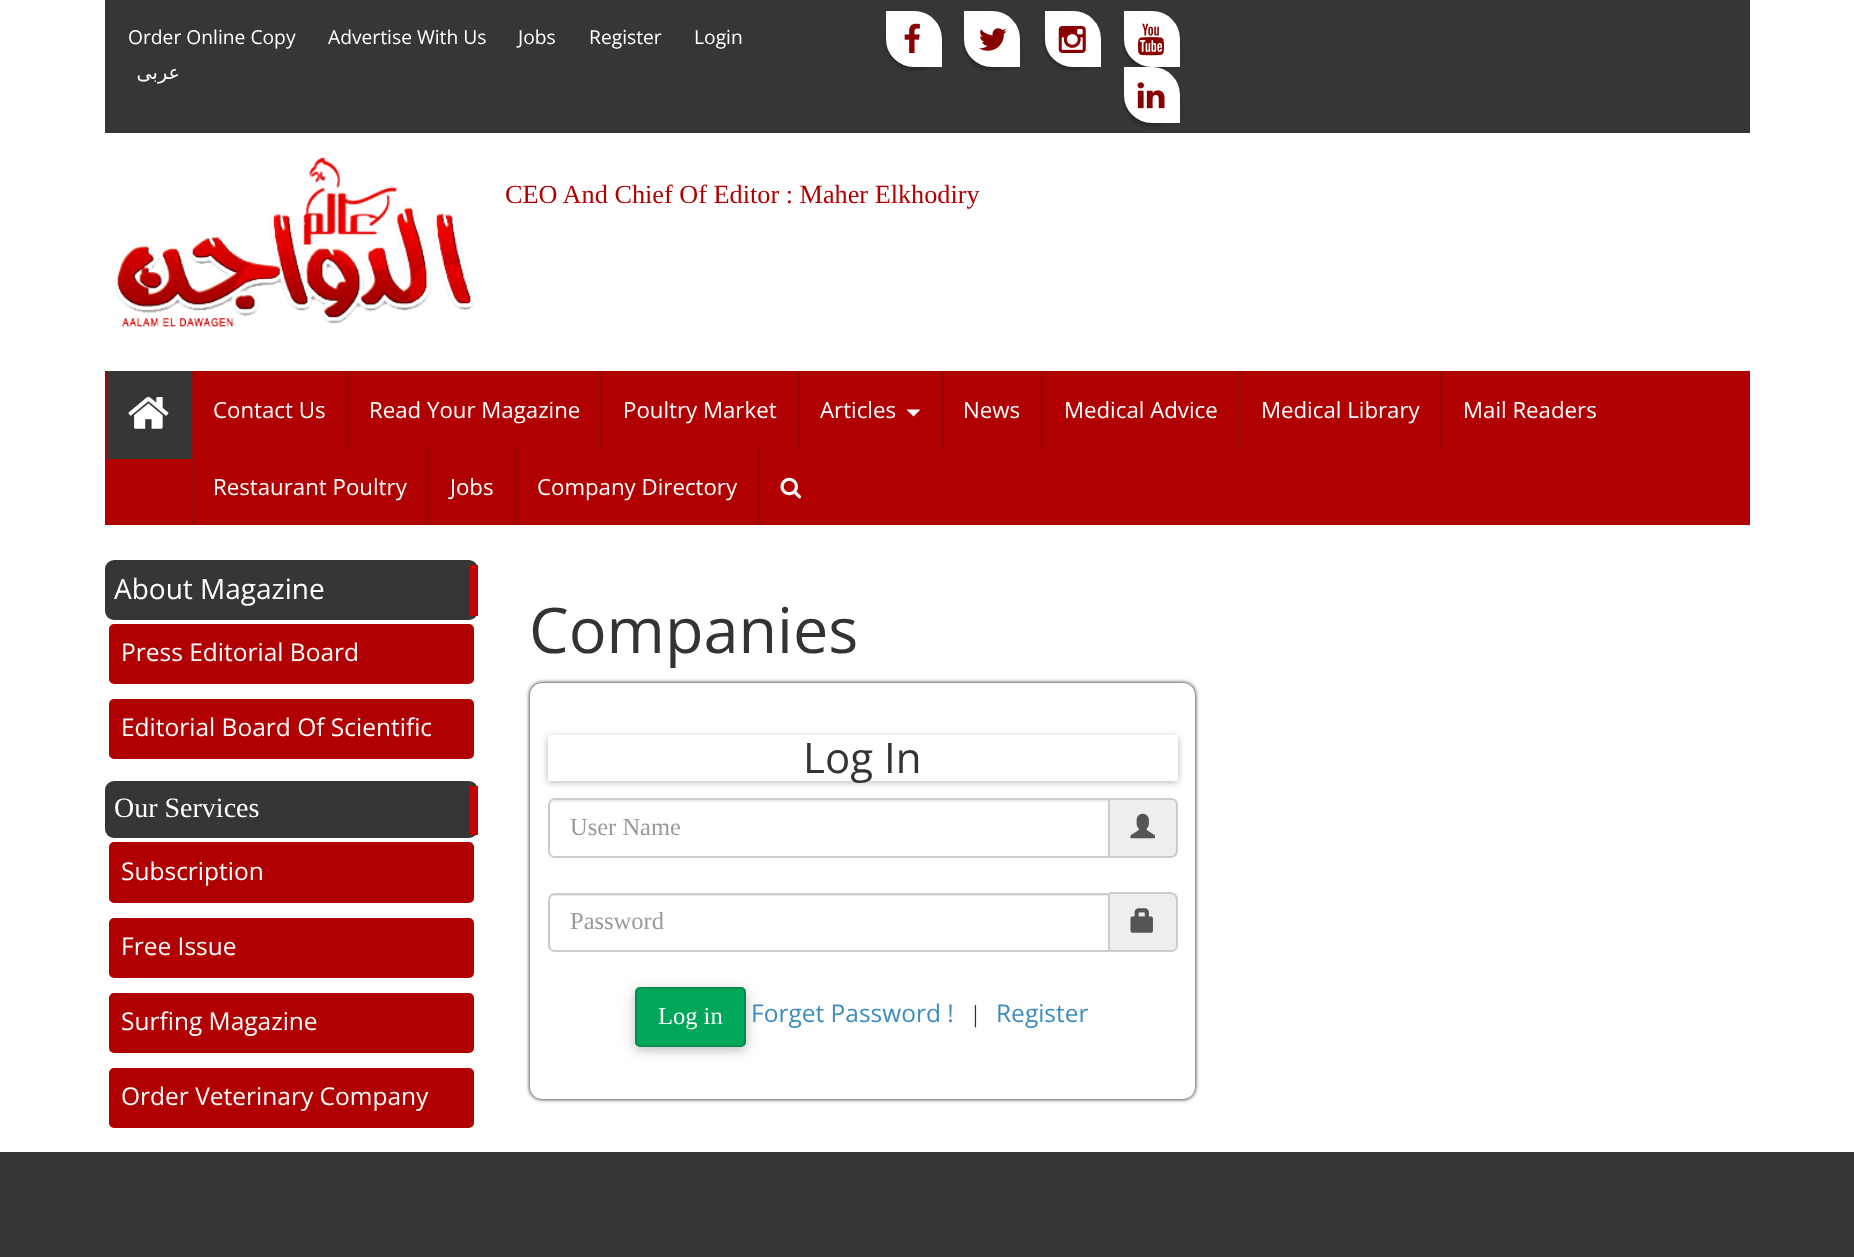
<svg xmlns="http://www.w3.org/2000/svg" width="1854" height="1257" viewBox="0 0 1854 1257">
  <defs>
    <filter id="blur1" x="-50%" y="-200%" width="200%" height="500%"><feGaussianBlur stdDeviation="2"/></filter>
    <clipPath id="clip1"><path d="M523 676H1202V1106H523ZM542 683H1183C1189.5 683 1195 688.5 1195 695V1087C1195 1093.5 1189.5 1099 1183 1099H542C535.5 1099 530 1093.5 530 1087V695C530 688.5 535.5 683 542 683Z" clip-rule="evenodd"/></clipPath>
    <clipPath id="clip2"><path d="M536 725H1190V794H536ZM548 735H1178V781H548Z" clip-rule="evenodd"/></clipPath>
    <filter id="blur2" x="-50%" y="-200%" width="200%" height="500%"><feGaussianBlur stdDeviation="3.5"/></filter>
    <filter id="blur3" x="-50%" y="-200%" width="200%" height="500%"><feGaussianBlur stdDeviation="9"/></filter>
    <filter id="blur4" x="-50%" y="-200%" width="200%" height="500%"><feGaussianBlur stdDeviation="4.5"/></filter>
  </defs>
  <rect width="100%" height="100%" fill="#ffffff"/>
  <rect x="105" y="0" width="1645" height="133" fill="#363636"/>
  <text x="128" y="44" font-family="Open Sans" font-size="19.25" fill="#ffffff">Order Online Copy</text>
  <text x="328" y="44" font-family="Open Sans" font-size="19.25" fill="#ffffff">Advertise With Us</text>
  <text x="518" y="44" font-family="Open Sans" font-size="19.25" fill="#ffffff">Jobs</text>
  <text x="589" y="44" font-family="Open Sans" font-size="19.25" fill="#ffffff">Register</text>
  <text x="694" y="44" font-family="Open Sans" font-size="19.25" fill="#ffffff">Login</text>
  <text x="180" y="79" font-family="DejaVu Sans" font-size="19.25" direction="rtl" fill="#ffffff">عربى</text>
  <rect x="886" y="14" width="56" height="56" rx="28" fill="#000000" fill-opacity="0.3" filter="url(#blur1)"/>
  <path d="M887 12H914C929 12 941 24 941 39V66H914C899 66 887 54 887 39Z" fill="#ffffff" stroke="#ffffff" stroke-width="2"/>
  <image x="904" y="23" width="16" height="30" href="img1.png"/>
  <rect x="964" y="14" width="56" height="56" rx="28" fill="#000000" fill-opacity="0.3" filter="url(#blur1)"/>
  <path d="M965 12H992C1007 12 1019 24 1019 39V66H992C977 66 965 54 965 39Z" fill="#ffffff" stroke="#ffffff" stroke-width="2"/>
  <image x="979" y="28" width="28" height="23" href="img2.png"/>
  <rect x="1045" y="14" width="56" height="56" rx="28" fill="#000000" fill-opacity="0.3" filter="url(#blur1)"/>
  <path d="M1046 12H1073C1088 12 1100 24 1100 39V66H1073C1058 66 1046 54 1046 39Z" fill="#ffffff" stroke="#ffffff" stroke-width="2"/>
  <image x="1058" y="26" width="28" height="27" href="img3.png"/>
  <rect x="1124" y="14" width="56" height="56" rx="28" fill="#000000" fill-opacity="0.3" filter="url(#blur1)"/>
  <path d="M1125 12H1152C1167 12 1179 24 1179 39V66H1152C1137 66 1125 54 1125 39Z" fill="#ffffff" stroke="#ffffff" stroke-width="2"/>
  <image x="1138" y="23" width="26" height="33" href="img4.png"/>
  <rect x="1124" y="70" width="56" height="56" rx="28" fill="#000000" fill-opacity="0.3" filter="url(#blur1)"/>
  <path d="M1125 68H1152C1167 68 1179 80 1179 95V122H1152C1137 122 1125 110 1125 95Z" fill="#ffffff" stroke="#ffffff" stroke-width="2"/>
  <image x="1137" y="82" width="28" height="27" href="img5.png"/>
  <image x="114" y="157" width="361" height="170" href="img6.png"/>
  <text x="505" y="203" font-family="Liberation Serif" font-size="26.25" fill="#b00001">CEO And Chief Of Editor : Maher Elkhodiry</text>
  <rect x="105" y="371" width="1645" height="154" fill="#b00001"/>
  <rect x="105" y="371" width="2" height="88" fill="#92090c"/>
  <rect x="107" y="371" width="84" height="88" fill="#363636"/>
  <image x="128" y="396" width="41" height="33" href="img7.png"/>
  <rect x="191" y="371" width="2" height="154" fill="#92090c"/>
  <text x="213" y="418" font-family="Open Sans" font-size="22.25" fill="#ffffff">Contact Us</text>
  <rect x="347" y="371" width="2" height="77" fill="#92090c"/>
  <text x="369" y="418" font-family="Open Sans" font-size="22.25" fill="#ffffff">Read Your Magazine</text>
  <rect x="600" y="371" width="2" height="77" fill="#92090c"/>
  <text x="623" y="418" font-family="Open Sans" font-size="22.25" fill="#ffffff">Poultry Market</text>
  <rect x="798" y="371" width="2" height="77" fill="#92090c"/>
  <text x="820" y="418" font-family="Open Sans" font-size="22.25" fill="#ffffff">Articles</text>
  <path d="M906.5 409.5H920.5L913.5 416.5Z" fill="#ffffff"/>
  <rect x="942" y="371" width="2" height="77" fill="#92090c"/>
  <text x="963" y="418" font-family="Open Sans" font-size="22.25" fill="#ffffff">News</text>
  <rect x="1041" y="371" width="2" height="77" fill="#92090c"/>
  <text x="1064" y="418" font-family="Open Sans" font-size="22.25" fill="#ffffff">Medical Advice</text>
  <rect x="1239" y="371" width="2" height="77" fill="#92090c"/>
  <text x="1261" y="418" font-family="Open Sans" font-size="22.25" fill="#ffffff">Medical Library</text>
  <rect x="1440" y="371" width="2" height="77" fill="#92090c"/>
  <text x="1463" y="418" font-family="Open Sans" font-size="22.25" fill="#ffffff">Mail Readers</text>
  <text x="213" y="495" font-family="Open Sans" font-size="22.25" fill="#ffffff">Restaurant Poultry</text>
  <rect x="427" y="448" width="2" height="77" fill="#92090c"/>
  <text x="450" y="495" font-family="Open Sans" font-size="22.25" fill="#ffffff">Jobs</text>
  <rect x="515" y="448" width="2" height="77" fill="#92090c"/>
  <text x="537" y="495" font-family="Open Sans" font-size="22.25" fill="#ffffff">Company Directory</text>
  <rect x="758" y="448" width="2" height="77" fill="#92090c"/>
  <image x="780" y="477" width="22" height="22" href="img8.png"/>
  <rect x="105" y="560" width="373" height="60" rx="9" fill="#363636"/>
  <rect x="469" y="565" width="9" height="51" fill="#c70000"/>
  <text x="114" y="599" font-family="Open Sans" font-size="28" fill="#ffffff">About Magazine</text>
  <rect x="107" y="622" width="369" height="64" rx="7" fill="#b00001" stroke="#ffffff" stroke-width="4"/>
  <text x="121" y="661" font-family="Open Sans" font-size="24.5" fill="#ffffff">Press Editorial Board</text>
  <rect x="107" y="697" width="369" height="64" rx="7" fill="#b00001" stroke="#ffffff" stroke-width="4"/>
  <text x="121" y="736" font-family="Open Sans" font-size="24.5" fill="#ffffff">Editorial Board Of Scientific</text>
  <rect x="105" y="781" width="373" height="57" rx="9" fill="#363636"/>
  <rect x="469" y="786" width="9" height="49" fill="#c70000"/>
  <text x="114" y="817" font-family="Liberation Serif" font-size="28" fill="#ffffff">Our Services</text>
  <rect x="107" y="840" width="369" height="65" rx="7" fill="#b00001" stroke="#ffffff" stroke-width="4"/>
  <text x="121" y="880" font-family="Open Sans" font-size="24.5" fill="#ffffff">Subscription</text>
  <rect x="107" y="916" width="369" height="64" rx="7" fill="#b00001" stroke="#ffffff" stroke-width="4"/>
  <text x="121" y="955" font-family="Open Sans" font-size="24.5" fill="#ffffff">Free Issue</text>
  <rect x="107" y="991" width="369" height="64" rx="7" fill="#b00001" stroke="#ffffff" stroke-width="4"/>
  <text x="121" y="1030" font-family="Open Sans" font-size="24.5" fill="#ffffff">Surfing Magazine</text>
  <rect x="107" y="1066" width="369" height="64" rx="7" fill="#b00001" stroke="#ffffff" stroke-width="4"/>
  <text x="121" y="1105" font-family="Open Sans" font-size="24.5" fill="#ffffff">Order Veterinary Company</text>
  <text x="529" y="653" font-family="Open Sans" font-size="63" fill="#333333">Companies</text>
  <g clip-path="url(#clip1)">
    <rect x="530" y="683" width="665" height="416" rx="12" fill="#000000" filter="url(#blur1)"/>
  </g>
  <g clip-path="url(#clip2)">
    <rect x="548" y="737" width="630" height="45" fill="#000000" fill-opacity="0.3" filter="url(#blur2)"/>
  </g>
  <text x="803" y="773" font-family="Open Sans" font-size="42" fill="#333333">Log In</text>
  <path d="M555 802H1108V800H555C551 800 550 804 550 807C550 804 552 802 555 802Z" fill="#ececec"/>
  <path d="M555 799H1109V857H555C551.5 857 549 854.5 549 851V805C549 801.5 551.5 799 555 799Z" fill="none" stroke="#cccccc" stroke-width="2"/>
  <text x="570" y="835" font-family="Liberation Serif" font-size="24.5" fill="#999999">User Name</text>
  <path d="M1110 798H1171C1175 798 1178 801 1178 805V851C1178 855 1175 858 1171 858H1110Z" fill="#eeeeee"/>
  <path d="M1110 798H1171C1175 798 1178 801 1178 805V850C1178 854 1175 858 1171 858H1110ZM1110 800H1171C1174 800 1176 802 1176 805V850C1176 853 1174 856 1171 856H1110Z" fill="#cccccc" fill-rule="evenodd"/>
  <image x="1130" y="813" width="25" height="26" href="img9.png"/>
  <path d="M555 896H1108V894H555C551 894 550 898 550 901C550 898 552 896 555 896Z" fill="#ececec"/>
  <path d="M555 894H1109V951H555C551.5 951 549 948.5 549 945V900C549 896.5 551.5 894 555 894Z" fill="none" stroke="#cccccc" stroke-width="2"/>
  <text x="570" y="929" font-family="Liberation Serif" font-size="24.5" fill="#999999">Password</text>
  <path d="M1110 893H1171C1175 893 1178 896 1178 900V945C1178 949 1175 952 1171 952H1110Z" fill="#eeeeee"/>
  <path d="M1110 892H1171C1175 892 1178 896 1178 900V945C1178 949 1175 952 1171 952H1110ZM1110 894H1171C1174 894 1176 897 1176 900V945C1176 948 1174 950 1171 950H1110Z" fill="#cccccc" fill-rule="evenodd"/>
  <image x="1130" y="908" width="23" height="25" href="img10.png"/>
  <rect x="635" y="991" width="111" height="59" rx="5" fill="#000000" fill-opacity="0.12" filter="url(#blur3)"/>
  <rect x="635" y="991" width="111" height="59" rx="5" fill="#000000" fill-opacity="0.16" filter="url(#blur4)"/>
  <rect x="636" y="988" width="109" height="58" rx="4" fill="#00a65a" stroke="#008d4c" stroke-width="2"/>
  <text x="658" y="1024" font-family="Liberation Serif" font-size="24.5" fill="#ffffff">Log in</text>
  <text x="751" y="1022" font-family="Open Sans" font-size="24.5" fill="#3c8dbc">Forget Password !</text>
  <text x="973" y="1022" font-family="Liberation Serif" font-size="24.5" fill="#333333">|</text>
  <text x="996" y="1022" font-family="Open Sans" font-size="24.5" fill="#3c8dbc">Register</text>
  <rect x="0" y="1152" width="1854" height="105" fill="#363636"/>
</svg>
